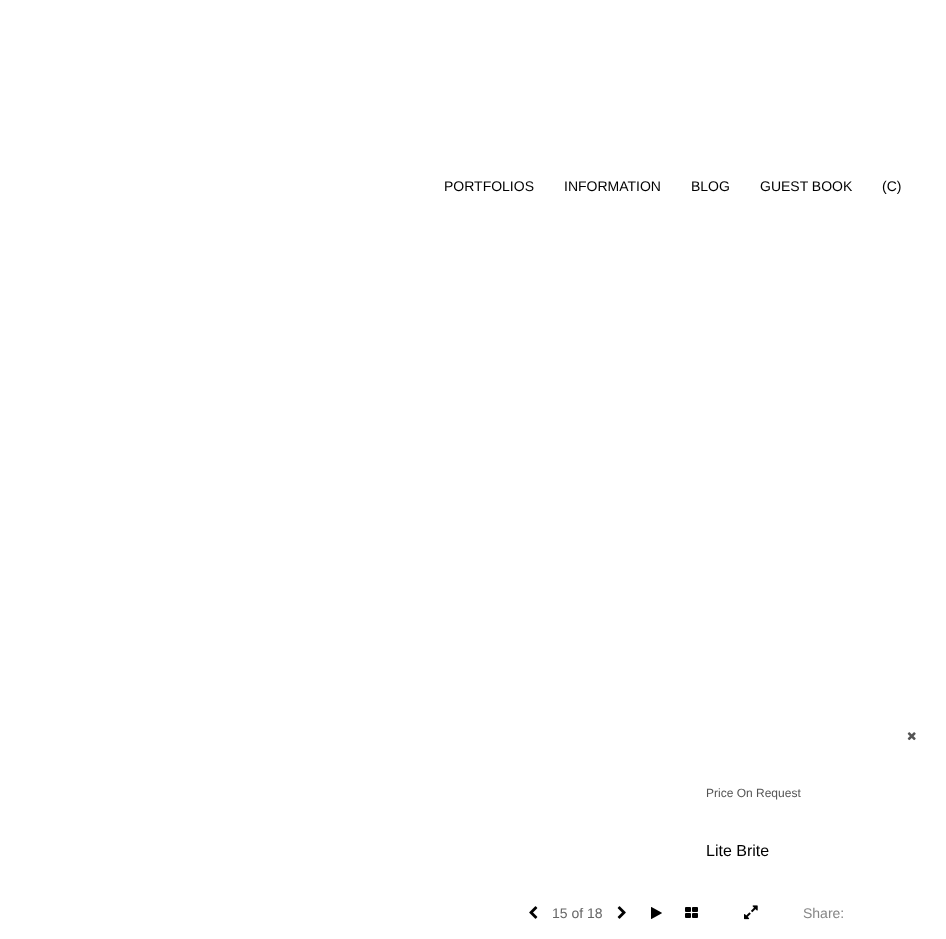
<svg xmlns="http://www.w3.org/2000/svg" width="946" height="939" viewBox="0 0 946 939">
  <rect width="100%" height="100%" fill="#ffffff"/>
  <text x="444" y="191" font-family="Liberation Sans" font-size="14" fill="#000000">PORTFOLIOS</text>
  <text x="564" y="191" font-family="Liberation Sans" font-size="14" fill="#000000">INFORMATION</text>
  <text x="691" y="191" font-family="Liberation Sans" font-size="14" fill="#000000">BLOG</text>
  <text x="760" y="191" font-family="Liberation Sans" font-size="14" fill="#000000">GUEST BOOK</text>
  <text x="882" y="191" font-family="Liberation Sans" font-size="14" fill="#000000">(C)</text>
  <image x="907" y="732" width="9" height="9" href="img1.png"/>
  <text x="706" y="797" font-family="Liberation Sans" font-size="12" fill="#545454">Price On Request</text>
  <text x="706" y="856" font-family="Liberation Sans" font-size="16" fill="#000000">Lite Brite</text>
  <image x="529" y="906" width="9" height="13" href="img2.png"/>
  <text x="552" y="918" font-family="Liberation Sans" font-size="14" fill="#666666">15 of 18</text>
  <image x="617" y="906" width="9" height="13" href="img3.png"/>
  <image x="651" y="907" width="11" height="12" href="img4.png"/>
  <image x="685" y="907" width="13" height="11" href="img5.png"/>
  <image x="744" y="905" width="14" height="15" href="img6.png"/>
  <text x="803" y="918" font-family="Liberation Sans" font-size="14" fill="#858585">Share:</text>
</svg>
